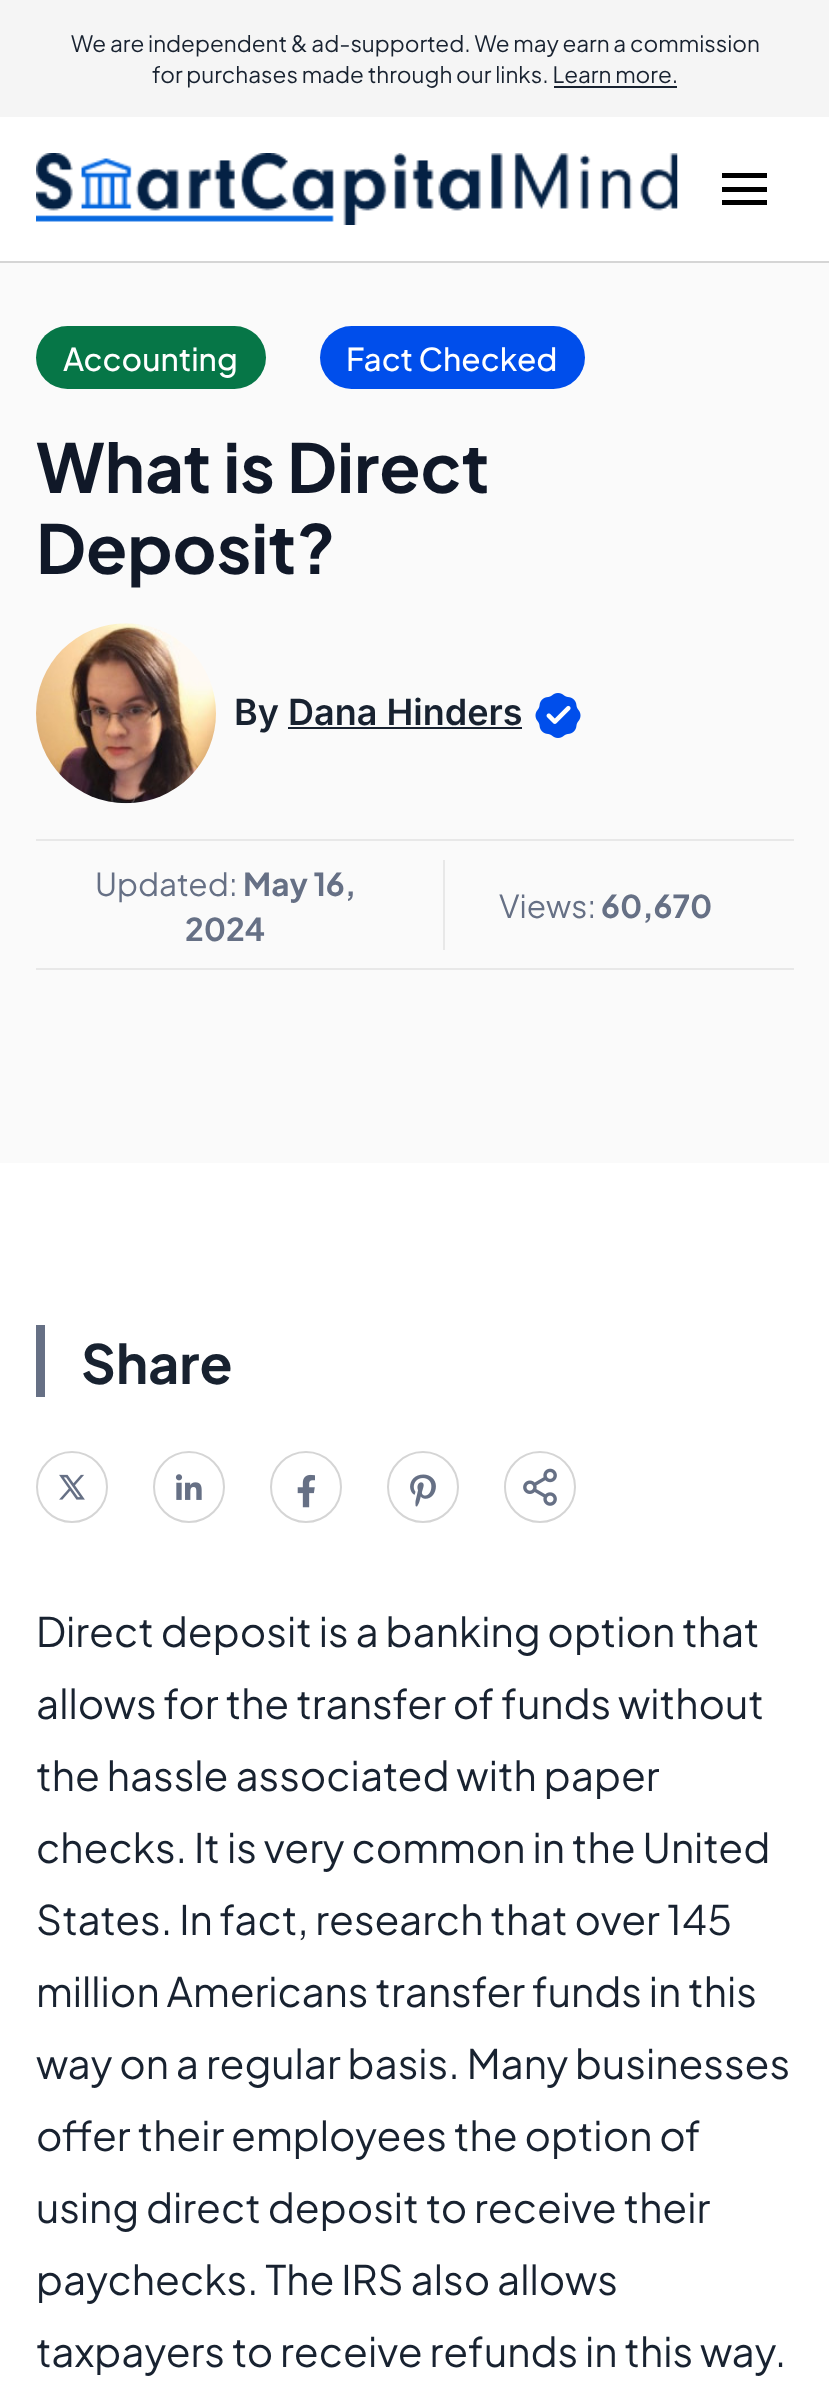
<svg xmlns="http://www.w3.org/2000/svg" width="829" height="2384" viewBox="0 0 829 2384">
  <rect width="100%" height="100%" fill="#ffffff"/>
  <rect x="0" y="0" width="829" height="117" fill="#f5f5f5"/>
  <text x="71" y="52" font-family="Plus Jakarta Sans" font-size="22.5" fill="#182230">We are independent &amp; ad-supported. We may earn a commission</text>
  <text x="152" y="83" font-family="Plus Jakarta Sans" font-size="22.5" fill="#182230">for purchases made through our links. Learn more.</text>
  <rect x="554" y="86" width="123" height="2" fill="#182230"/>
  <rect x="0" y="261" width="829" height="2" fill="#d5d5d5"/>
  <image x="36" y="153" width="642" height="72" href="img1.png"/>
  <rect x="722" y="187" width="45" height="5" fill="#000000"/>
  <rect x="722" y="173" width="45" height="5" fill="#000000"/>
  <rect x="722" y="200" width="45" height="5" fill="#000000"/>
  <rect x="0" y="263" width="829" height="900" fill="#fafafa"/>
  <rect x="36" y="326" width="230" height="63" rx="31.5" fill="#067647"/>
  <text x="63" y="371" font-family="Plus Jakarta Sans" font-size="31.5" font-weight="500" fill="#ffffff">Accounting</text>
  <rect x="320" y="326" width="265" height="63" rx="31.5" fill="#004eeb"/>
  <text x="346" y="371" font-family="Plus Jakarta Sans" font-size="31.5" font-weight="500" fill="#ffffff">Fact Checked</text>
  <text x="36" y="493" font-family="Plus Jakarta Sans" font-size="67.5" font-weight="bold" fill="#101828">What is Direct</text>
  <text x="36" y="574" font-family="Plus Jakarta Sans" font-size="67.5" font-weight="bold" fill="#101828">Deposit?</text>
  <image x="36" y="623" width="180" height="181" href="img2.png"/>
  <text x="234" y="725" font-family="Inter" font-size="36" font-weight="600" fill="#182230">By Dana Hinders</text>
  <image x="535" y="693" width="46" height="45" href="img3.png"/>
  <rect x="288" y="727" width="234" height="2" fill="#182230"/>
  <rect x="36" y="839" width="758" height="2" fill="#e8e8e8"/>
  <rect x="36" y="968" width="758" height="2" fill="#e8e8e8"/>
  <text x="95" y="896" font-family="Plus Jakarta Sans" font-size="31.5" fill="#667085">Updated:</text>
  <text x="243" y="896" font-family="Plus Jakarta Sans" font-size="31.5" font-weight="bold" fill="#667085">May 16,</text>
  <text x="185" y="941" font-family="Plus Jakarta Sans" font-size="31.5" font-weight="bold" fill="#667085">2024</text>
  <rect x="443" y="860" width="2" height="90" fill="#e8e8e8"/>
  <text x="499" y="918" font-family="Plus Jakarta Sans" font-size="31.5" fill="#667085">Views:</text>
  <text x="601" y="918" font-family="Plus Jakarta Sans" font-size="31.5" font-weight="bold" fill="#667085">60,670</text>
  <rect x="36" y="1325" width="9" height="72" fill="#667085"/>
  <text x="81" y="1384" font-family="Plus Jakarta Sans" font-size="54" font-weight="bold" fill="#182230">Share</text>
  <circle cx="72" cy="1487" r="35" fill="none" stroke="#d5d5d5" stroke-width="2"/>
  <image x="59" y="1474" width="26" height="26" href="img4.png"/>
  <circle cx="189" cy="1487" r="35" fill="none" stroke="#d5d5d5" stroke-width="2"/>
  <image x="175" y="1474" width="27" height="26" href="img5.png"/>
  <circle cx="306" cy="1487" r="35" fill="none" stroke="#d5d5d5" stroke-width="2"/>
  <image x="297" y="1474" width="18" height="34" href="img6.png"/>
  <circle cx="423" cy="1487" r="35" fill="none" stroke="#d5d5d5" stroke-width="2"/>
  <image x="410" y="1474" width="26" height="33" href="img7.png"/>
  <circle cx="540" cy="1487" r="35" fill="none" stroke="#d5d5d5" stroke-width="2"/>
  <image x="523" y="1468" width="34" height="38" href="img8.png"/>
  <text x="36" y="1647" font-family="Plus Jakarta Sans" font-size="40.5" fill="#182230">Direct deposit is a banking option that</text>
  <text x="36" y="1719" font-family="Plus Jakarta Sans" font-size="40.5" fill="#182230">allows for the transfer of funds without</text>
  <text x="36" y="1791" font-family="Plus Jakarta Sans" font-size="40.5" fill="#182230">the hassle associated with paper</text>
  <text x="36" y="1863" font-family="Plus Jakarta Sans" font-size="40.5" fill="#182230">checks. It is very common in the United</text>
  <text x="36" y="1935" font-family="Plus Jakarta Sans" font-size="40.5" fill="#182230">States. In fact, research that over 145</text>
  <text x="36" y="2007" font-family="Plus Jakarta Sans" font-size="40.5" fill="#182230">million Americans transfer funds in this</text>
  <text x="36" y="2079" font-family="Plus Jakarta Sans" font-size="40.5" fill="#182230">way on a regular basis. Many businesses</text>
  <text x="36" y="2151" font-family="Plus Jakarta Sans" font-size="40.5" fill="#182230">offer their employees the option of</text>
  <text x="36" y="2223" font-family="Plus Jakarta Sans" font-size="40.5" fill="#182230">using direct deposit to receive their</text>
  <text x="36" y="2295" font-family="Plus Jakarta Sans" font-size="40.5" fill="#182230">paychecks. The IRS also allows</text>
  <text x="36" y="2367" font-family="Plus Jakarta Sans" font-size="40.5" fill="#182230">taxpayers to receive refunds in this way.</text>
</svg>
